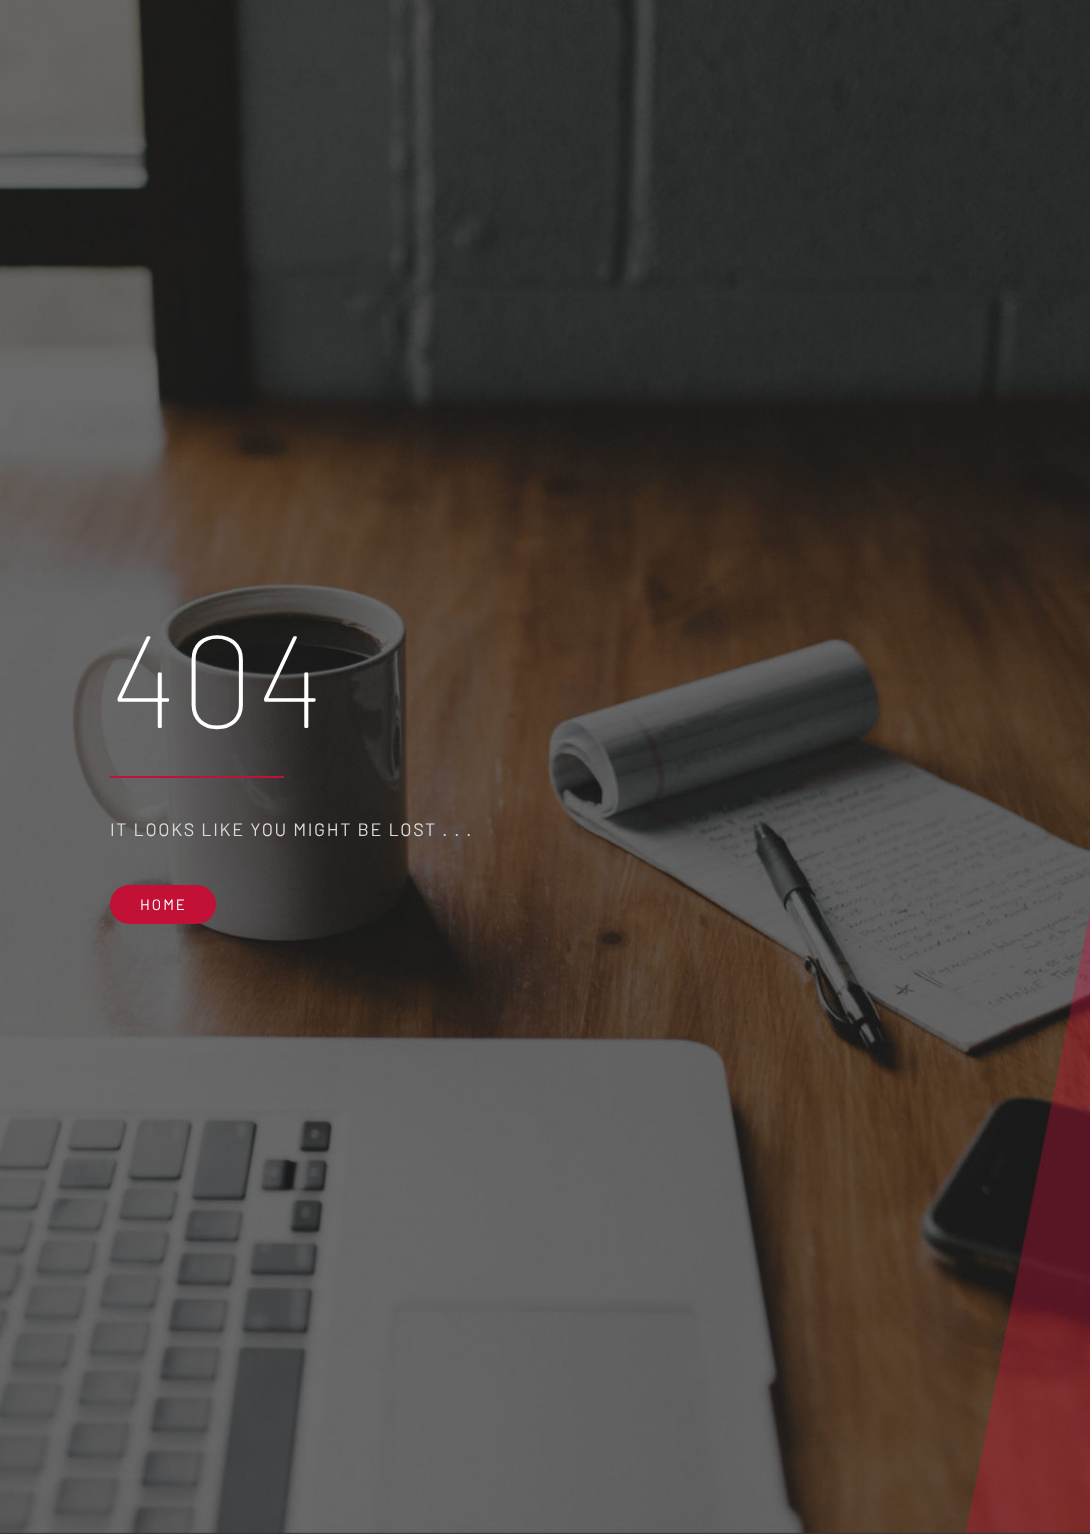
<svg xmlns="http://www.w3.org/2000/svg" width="1090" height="1534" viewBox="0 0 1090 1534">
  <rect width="100%" height="100%" fill="#ffffff"/>
  <image x="0" y="0" width="1090" height="1534" href="img1.png"/>
  <text x="110" y="728" font-family="Barlow" font-size="131" font-weight="200" letter-spacing="2.5" fill="#ffffff">404</text>
  <rect x="110" y="776" width="174" height="2" fill="#c31037"/>
  <text x="110" y="836" font-family="Barlow" font-size="18" letter-spacing="1.7" fill="#dbdbdb">IT LOOKS LIKE YOU MIGHT BE LOST . . .</text>
  <rect x="110" y="885" width="106" height="39" rx="19.5" fill="#c31037"/>
  <text x="140" y="910" font-family="Barlow" font-size="15" letter-spacing="2" fill="#ffffff">HOME</text>
</svg>
